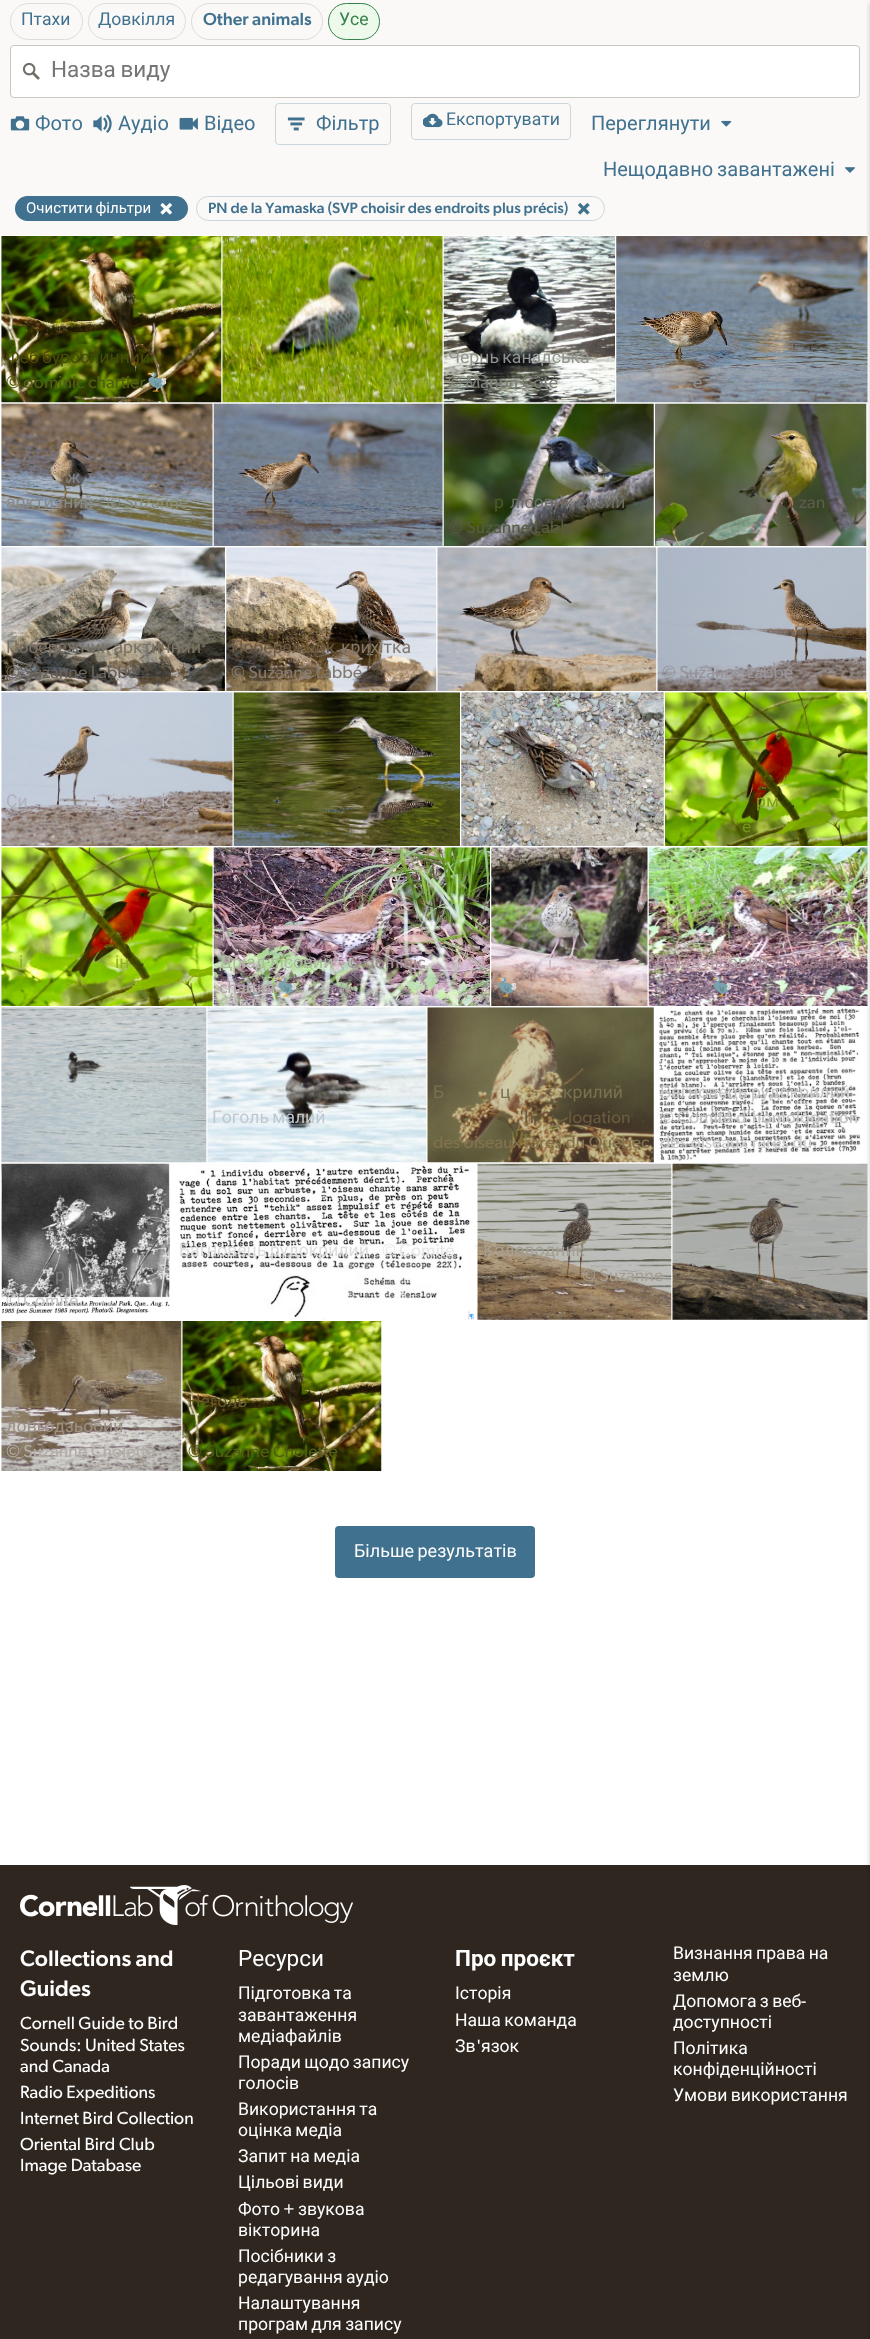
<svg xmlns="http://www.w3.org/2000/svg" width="870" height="2339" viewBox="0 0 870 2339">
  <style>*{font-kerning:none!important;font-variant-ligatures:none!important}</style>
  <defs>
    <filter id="blur1" x="-50%" y="-200%" width="200%" height="500%"><feGaussianBlur stdDeviation="2.5"/></filter>
  </defs>
  <rect width="100%" height="100%" fill="#ffffff"/>
  <rect x="0" y="0" width="870" height="235" fill="#faf9f7"/>
  <rect x="10.5" y="3.5" width="72" height="36" rx="18" fill="none" stroke="#dddcd5"/>
  <text x="21" y="25" font-family="Roboto" font-size="17.6" fill="#40718f">Птахи</text>
  <rect x="88.5" y="3.5" width="97" height="36" rx="18" fill="none" stroke="#dddcd5"/>
  <text x="98" y="25" font-family="Roboto" font-size="17.6" fill="#40718f">Довкілля</text>
  <rect x="191.5" y="3.5" width="131" height="36" rx="18" fill="none" stroke="#dddcd5"/>
  <text x="203" y="25" font-family="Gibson" font-size="17.6" font-weight="500" fill="#40718f">Other animals</text>
  <rect x="328.5" y="3.5" width="51" height="36" rx="18" fill="#ecf9eb" stroke="#36824b"/>
  <text x="339" y="25" font-family="Roboto" font-size="17.6" fill="#36824b">Усе</text>
  <rect x="10.5" y="45.5" width="849" height="52" rx="3.5" fill="#ffffff" stroke="#c8c7c0"/>
  <image x="22" y="62" width="18" height="18" href="img1.png"/>
  <text x="51" y="77" word-spacing="-1" font-family="Roboto" font-size="22.5" fill="#757575">Назва виду</text>
  <image x="10" y="116" width="20" height="15" href="img2.png"/>
  <text x="35" y="130" font-family="Roboto" font-size="20" fill="#40718f">Фото</text>
  <image x="93" y="114" width="19" height="19" href="img3.png"/>
  <text x="118" y="130" font-family="Roboto" font-size="20" fill="#40718f">Аудіо</text>
  <image x="179" y="117" width="19" height="13" href="img4.png"/>
  <text x="204" y="130" font-family="Roboto" font-size="20" fill="#40718f">Відео</text>
  <rect x="275.5" y="103.5" width="115" height="41" rx="3.5" fill="none" stroke="#ccd7dd"/>
  <image x="287" y="117" width="18" height="14" href="img5.png"/>
  <text x="316" y="130" font-family="Roboto" font-size="20" fill="#40718f">Фільтр</text>
  <rect x="411.5" y="103.5" width="159" height="36" rx="3.5" fill="none" stroke="#ccd7dd"/>
  <image x="423" y="113" width="20" height="15" href="img6.png"/>
  <text x="446" y="125" font-family="Roboto" font-size="17.6" fill="#40718f">Експортувати</text>
  <text x="591" y="130" font-family="Roboto" font-size="20" fill="#40718f">Переглянути</text>
  <image x="721" y="120" width="11" height="7" href="img7.png"/>
  <text x="603" y="176" word-spacing="-1" font-family="Roboto" font-size="20" fill="#40718f">Нещодавно завантажені</text>
  <image x="845" y="167" width="10" height="6" href="img8.png"/>
  <rect x="15" y="196" width="173" height="25" rx="12.5" fill="#40718f"/>
  <text x="26" y="213" word-spacing="-1" font-family="Roboto" font-size="15" fill="#ffffff">Очистити фільтри</text>
  <image x="160" y="203" width="12" height="12" href="img9.png"/>
  <rect x="196.5" y="196.5" width="408" height="24" rx="12" fill="none" stroke="#ccd7dd"/>
  <text x="208" y="213" font-family="Gibson" font-size="15" font-weight="500" fill="#40718f">PN de la Yamaska (SVP choisir des endroits plus précis)</text>
  <image x="578" y="203" width="12" height="12" href="img10.png"/>
  <image x="1" y="236" width="221" height="167" href="img11.png"/>
  <text x="6" y="363" word-spacing="-1" font-family="Roboto" font-size="17.6" fill="#454b0b">Феб буроспинний</text>
  <text x="6" y="388" font-family="Gibson" font-size="17.6" fill="#4f5f13">© dominic chartier</text>
  <text x="146" y="388" font-family="Noto Color Emoji" font-size="17.6" fill="#63562e">🦤</text>
  <image x="222" y="236" width="221" height="167" href="img12.png"/>
  <image x="443" y="236" width="172" height="167" href="img13.png"/>
  <text x="448" y="363" word-spacing="-1" font-family="Roboto" font-size="17.6" fill="#929490">Чернь канадська</text>
  <text x="448" y="388" font-family="Gibson" font-size="17.6" fill="#7c7f76">© Manon Côté</text>
  <image x="616" y="236" width="252" height="167" href="img14.png"/>
  <text x="693" y="388" font-family="Gibson" font-size="17.6" fill="#8d9197">e</text>
  <image x="1" y="403" width="212" height="143" href="img15.png"/>
  <text x="67" y="483" font-family="Roboto" font-size="17.6" fill="#7f838a">ж</text>
  <text x="6" y="508" font-family="Roboto" font-size="17.6" fill="#868989">арктичний</text>
  <text x="107" y="508" font-family="Gibson" font-size="17.6" fill="#898c7c">© Suzanne</text>
  <image x="213" y="403" width="230" height="143" href="img16.png"/>
  <image x="443" y="403" width="211" height="143" href="img17.png"/>
  <text x="494" y="508" font-family="Roboto" font-size="17.6" fill="#495b23">р</text>
  <text x="510" y="508" word-spacing="-1" font-family="Roboto" font-size="17.6" fill="#6d6d67">лісовик сизий</text>
  <text x="449" y="533" font-family="Gibson" font-size="17.6" fill="#575c41">© Suzanne Labb</text>
  <image x="655" y="403" width="212" height="143" href="img18.png"/>
  <text x="799" y="508" font-family="Gibson" font-size="17.6" fill="#5c5c4c">zan</text>
  <image x="1" y="547" width="224" height="144" href="img19.png"/>
  <text x="6" y="653" word-spacing="-1" font-family="Roboto" font-size="17.6" fill="#797266">Побережник арктичний</text>
  <text x="6" y="678" font-family="Gibson" font-size="17.6" fill="#67625c">© Suzanne Labbé</text>
  <image x="226" y="547" width="211" height="144" href="img20.png"/>
  <text x="231" y="653" font-family="Roboto" font-size="17.6" fill="#6d5b44">Побережник</text>
  <text x="341" y="653" font-family="Roboto" font-size="17.6" fill="#82796e">крихітка</text>
  <text x="231" y="678" font-family="Gibson" font-size="17.6" fill="#82796e">© Suzanne Labbé</text>
  <image x="437" y="547" width="220" height="144" href="img21.png"/>
  <image x="657" y="547" width="210" height="144" href="img22.png"/>
  <text x="662" y="678" font-family="Gibson" font-size="17.6" fill="#97959a">© Suzanne Labbé</text>
  <image x="1" y="692" width="232" height="154" href="img23.png"/>
  <text x="6" y="807" word-spacing="-1" font-family="Roboto" font-size="17.6" fill="#b1b1b8">Си</text>
  <text x="161" y="807" word-spacing="-1" font-family="Roboto" font-size="17.6" fill="#b1b1b8">к</text>
  <image x="233" y="692" width="227" height="154" href="img24.png"/>
  <image x="461" y="692" width="203" height="154" href="img25.png"/>
  <image x="665" y="692" width="203" height="154" href="img26.png"/>
  <text x="756" y="807" word-spacing="-1" font-family="Roboto" font-size="17.6" fill="#7ea218">рм</text>
  <text x="742" y="832" font-family="Gibson" font-size="17.6" fill="#729611">e</text>
  <image x="1" y="847" width="212" height="159" href="img27.png"/>
  <text x="19" y="968" word-spacing="-1" font-family="Roboto" font-size="17.6" fill="#8cb31a">і</text>
  <text x="115" y="968" word-spacing="-1" font-family="Roboto" font-size="17.6" fill="#8cb31a">ін</text>
  <image x="213" y="847" width="277" height="159" href="img28.png"/>
  <text x="219" y="968" word-spacing="-1" font-family="Roboto" font-size="17.6" fill="#acba9e">Дрізд лісовий</text>
  <text x="347" y="968" font-family="Gibson" font-size="17.6" fill="#9d8f90">© dominic</text>
  <text x="219" y="993" font-family="Gibson" font-size="17.6" fill="#b0a6a7">chartier</text>
  <text x="276" y="993" font-family="Noto Color Emoji" font-size="17.6" fill="#a9a59e">🦤</text>
  <image x="491" y="847" width="157" height="159" href="img29.png"/>
  <text x="548" y="968" font-family="Gibson" font-size="17.6" fill="#cebdc1">i</text>
  <text x="496" y="993" font-family="Noto Color Emoji" font-size="17.6" fill="#a5887d">🦤</text>
  <image x="648" y="847" width="220" height="159" href="img30.png"/>
  <text x="654" y="968" word-spacing="-1" font-family="Roboto" font-size="17.6" fill="#b39ca3">Дрізд лісовий</text>
  <text x="782" y="968" font-family="Gibson" font-size="17.6" fill="#947884">© dominic</text>
  <text x="654" y="993" font-family="Gibson" font-size="17.6" fill="#90798c">chartier</text>
  <text x="711" y="993" font-family="Noto Color Emoji" font-size="17.6" fill="#90798c">🦤</text>
  <image x="1" y="1007" width="206" height="156" href="img31.png"/>
  <image x="207" y="1007" width="220" height="156" href="img32.png"/>
  <text x="212" y="1123" word-spacing="-1" font-family="Roboto" font-size="17.6" fill="#c0c8cd">Гоголь малий</text>
  <image x="427" y="1007" width="227" height="156" href="img33.png"/>
  <text x="433" y="1098" word-spacing="-1" font-family="Roboto" font-size="17.6" fill="#7b7151">Б</text>
  <text x="500" y="1098" word-spacing="-1" font-family="Roboto" font-size="17.6" fill="#7b7151">ц</text>
  <text x="563" y="1098" word-spacing="-1" font-family="Roboto" font-size="17.6" fill="#7b7151">крилий</text>
  <text x="519" y="1123" font-family="Gibson" font-size="17.6" fill="#6a5a3e">'h</text>
  <text x="568" y="1123" font-family="Gibson" font-size="17.6" fill="#6a5a3e">logation</text>
  <text x="433" y="1148" font-family="Gibson" font-size="17.6" fill="#82724d">des oiseaux rares du Québec</text>
  <image x="658" y="1007" width="203" height="154" href="img34.png"/>
  <text x="660" y="1098" word-spacing="-1" font-family="Roboto" font-size="17.6" fill="#c8c8c8">Багновець рудокрилий</text>
  <text x="660" y="1123" font-family="Gibson" font-size="17.6" fill="#c8c8c8">© Comité d'homologation</text>
  <text x="660" y="1148" font-family="Gibson" font-size="17.6" fill="#cecece">des oiseaux rares du…</text>
  <image x="1" y="1163" width="169" height="151" href="img35.png"/>
  <text x="84" y="1256" font-family="Roboto" font-size="17.6" fill="#6e6e6e">ь</text>
  <text x="55" y="1281" font-family="Roboto" font-size="17.6" fill="#7e7e7e">р</text>
  <text x="6" y="1306" font-family="Gibson" font-size="17.6" fill="#c8c8c8">© Comité…</text>
  <image x="179" y="1164" width="298" height="156" href="img36.png"/>
  <text x="179" y="1256" word-spacing="-1" font-family="Roboto" font-size="17.6" fill="#dedede">Багновець рудокрилий</text>
  <text x="382" y="1256" font-family="Gibson" font-size="17.6" fill="#e8e8e8">© Comité</text>
  <image x="477" y="1163" width="195" height="157" href="img37.png"/>
  <text x="483" y="1256" font-family="Roboto" font-size="17.6" fill="#a69f91">Коловодник</text>
  <text x="582" y="1281" font-family="Gibson" font-size="17.6" fill="#a69f91">© Suzanne</text>
  <image x="672" y="1163" width="196" height="157" href="img38.png"/>
  <image x="1" y="1321" width="181" height="150" href="img39.png"/>
  <text x="6" y="1432" font-family="Roboto" font-size="17.6" fill="#9c9085">довгодзьобий</text>
  <text x="6" y="1457" font-family="Gibson" font-size="17.6" fill="#b2ada7">© Suzanne Cholette</text>
  <image x="182" y="1321" width="200" height="150" href="img40.png"/>
  <text x="188" y="1407" font-family="Roboto" font-size="17.6" fill="#615a26">Неголь</text>
  <text x="188" y="1457" font-family="Gibson" font-size="17.6" fill="#4f5f13">© Suzanne Cholette</text>
  <rect x="335" y="1526" width="200" height="52" rx="4" fill="#40718f"/>
  <text x="354" y="1557" word-spacing="-1" font-family="Roboto" font-size="18" fill="#ffffff">Більше результатів</text>
  <rect x="0" y="1865" width="870" height="474" fill="#2e261f"/>
  <rect x="870" y="3" width="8" height="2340" fill="#000000" fill-opacity="0.2" filter="url(#blur1)"/>
  <image x="20" y="1885" width="333" height="40" href="img41.png"/>
  <text x="20" y="1966" font-family="Gibson" font-size="22.5" font-weight="500" fill="#ffffff">Collections and</text>
  <text x="20" y="1996" font-family="Gibson" font-size="22.5" font-weight="500" fill="#ffffff">Guides</text>
  <text x="20" y="2029" font-family="Gibson" font-size="17.6" fill="#ffffff">Cornell Guide to Bird</text>
  <text x="20" y="2051" font-family="Gibson" font-size="17.6" fill="#ffffff">Sounds: United States</text>
  <text x="20" y="2072" font-family="Gibson" font-size="17.6" fill="#ffffff">and Canada</text>
  <text x="20" y="2098" font-family="Gibson" font-size="17.6" fill="#ffffff">Radio Expeditions</text>
  <text x="20" y="2124" font-family="Gibson" font-size="17.6" fill="#ffffff">Internet Bird Collection</text>
  <text x="20" y="2150" font-family="Gibson" font-size="17.6" fill="#ffffff">Oriental Bird Club</text>
  <text x="20" y="2171" font-family="Gibson" font-size="17.6" fill="#ffffff">Image Database</text>
  <text x="238" y="1966" font-family="Roboto" font-size="22.5" fill="#ffffff">Ресурси</text>
  <text x="238" y="1999" word-spacing="-1" font-family="Roboto" font-size="17.6" fill="#ffffff">Підготовка та</text>
  <text x="238" y="2021" font-family="Roboto" font-size="17.6" fill="#ffffff">завантаження</text>
  <text x="238" y="2042" font-family="Roboto" font-size="17.6" fill="#ffffff">медіафайлів</text>
  <text x="238" y="2068" word-spacing="-1" font-family="Roboto" font-size="17.6" fill="#ffffff">Поради щодо запису</text>
  <text x="238" y="2089" font-family="Roboto" font-size="17.6" fill="#ffffff">голосів</text>
  <text x="238" y="2115" word-spacing="-1" font-family="Roboto" font-size="17.6" fill="#ffffff">Використання та</text>
  <text x="238" y="2136" word-spacing="-1" font-family="Roboto" font-size="17.6" fill="#ffffff">оцінка медіа</text>
  <text x="238" y="2162" word-spacing="-1" font-family="Roboto" font-size="17.6" fill="#ffffff">Запит на медіа</text>
  <text x="238" y="2188" word-spacing="-1" font-family="Roboto" font-size="17.6" fill="#ffffff">Цільові види</text>
  <text x="238" y="2215" font-family="Roboto" font-size="17.6" fill="#ffffff">Фото</text>
  <text x="283" y="2215" font-family="Gibson" font-size="17.6" fill="#ffffff">+</text>
  <text x="298" y="2215" font-family="Roboto" font-size="17.6" fill="#ffffff">звукова</text>
  <text x="238" y="2236" font-family="Roboto" font-size="17.6" fill="#ffffff">вікторина</text>
  <text x="238" y="2262" word-spacing="-1" font-family="Roboto" font-size="17.6" fill="#ffffff">Посібники з</text>
  <text x="238" y="2283" word-spacing="-1" font-family="Roboto" font-size="17.6" fill="#ffffff">редагування аудіо</text>
  <text x="238" y="2309" font-family="Roboto" font-size="17.6" fill="#ffffff">Налаштування</text>
  <text x="238" y="2330" word-spacing="-1" font-family="Roboto" font-size="17.6" fill="#ffffff">програм для запису</text>
  <text x="455" y="1966" word-spacing="-1" font-family="Roboto" font-size="22.5" font-weight="bold" fill="#ffffff">Про проєкт</text>
  <text x="455" y="1999" font-family="Roboto" font-size="17.6" fill="#ffffff">Історія</text>
  <text x="455" y="2026" word-spacing="-1" font-family="Roboto" font-size="17.6" fill="#ffffff">Наша команда</text>
  <text x="455" y="2052" font-family="Roboto" font-size="17.6" fill="#ffffff">Зв</text>
  <text x="476" y="2052" font-family="Gibson" font-size="17.6" fill="#ffffff">'</text>
  <text x="481" y="2052" font-family="Roboto" font-size="17.6" fill="#ffffff">язок</text>
  <text x="673" y="1959" word-spacing="-1" font-family="Roboto" font-size="17.6" fill="#ffffff">Визнання права на</text>
  <text x="673" y="1981" font-family="Roboto" font-size="17.6" fill="#ffffff">землю</text>
  <text x="673" y="2007" word-spacing="-1" font-family="Roboto" font-size="17.6" fill="#ffffff">Допомога з веб</text>
  <text x="801" y="2007" font-family="Gibson" font-size="17.6" fill="#ffffff">-</text>
  <text x="673" y="2028" font-family="Roboto" font-size="17.6" fill="#ffffff">доступності</text>
  <text x="673" y="2054" font-family="Roboto" font-size="17.6" fill="#ffffff">Політика</text>
  <text x="673" y="2075" font-family="Roboto" font-size="17.6" fill="#ffffff">конфіденційності</text>
  <text x="673" y="2101" word-spacing="-1" font-family="Roboto" font-size="17.6" fill="#ffffff">Умови використання</text>
</svg>
